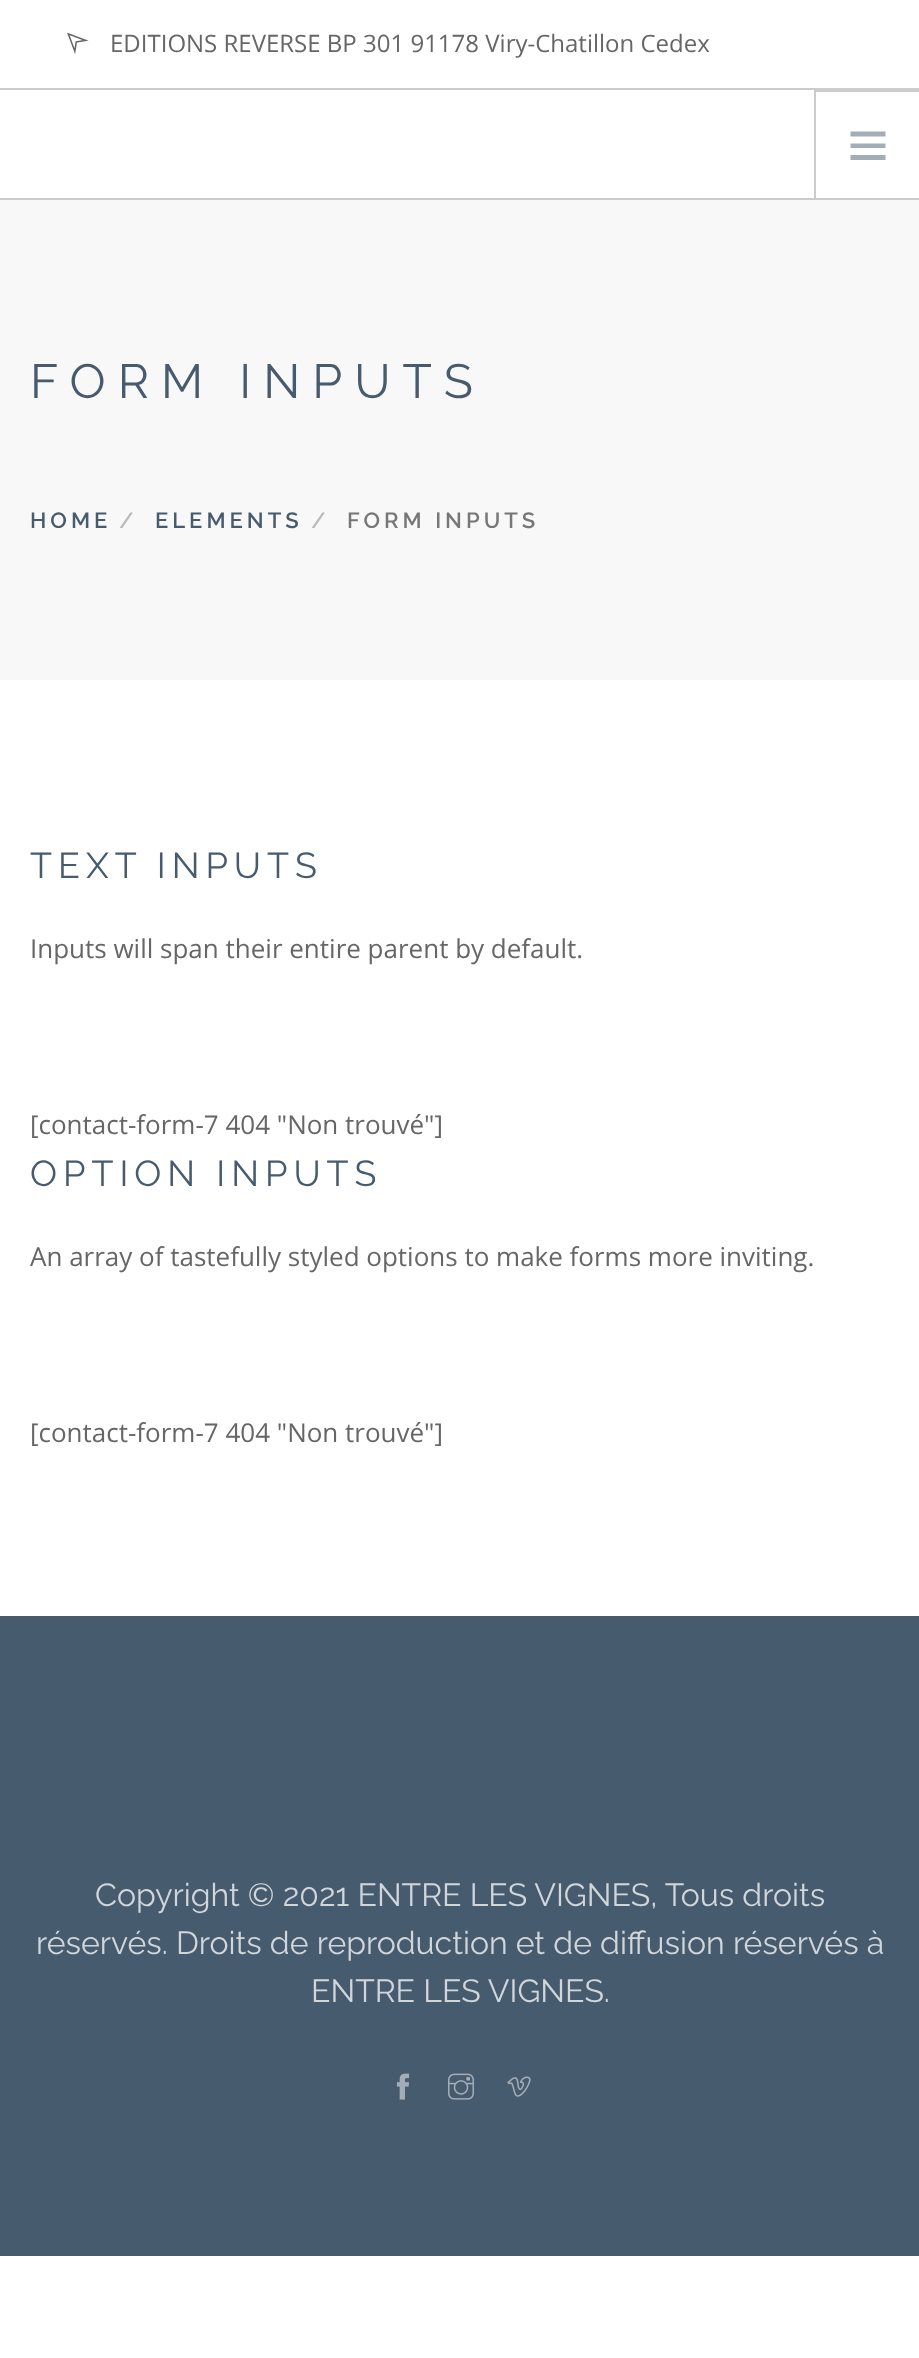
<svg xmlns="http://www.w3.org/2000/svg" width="919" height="2358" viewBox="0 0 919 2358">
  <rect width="100%" height="100%" fill="#ffffff"/>
  <rect x="0" y="88" width="919" height="2" fill="#cccccc"/>
  <image x="67" y="32" width="22" height="22" href="img1.png"/>
  <text x="110" y="52" font-family="Open Sans" font-size="24" fill="#666666">EDITIONS REVERSE BP 301 91178 Viry-Chatillon Cedex</text>
  <rect x="0" y="198" width="919" height="2" fill="#cccccc"/>
  <rect x="814" y="90" width="105" height="2" fill="#cccccc"/>
  <rect x="814" y="90" width="2" height="108" fill="#cccccc"/>
  <path d="M885.5 131.5V136.5H850.5V131.5ZM850.5 148H885.5V143.5H850.5ZM850.5 160H885.5V155H850.5Z" fill="#a3adb7"/>
  <rect x="0" y="200" width="919" height="480" fill="#f8f8f8"/>
  <text x="30" y="398" font-family="Raleway" font-size="48" letter-spacing="12" fill="#475b6f">FORM INPUTS</text>
  <text x="30" y="528" font-family="Raleway" font-size="22" font-weight="600" letter-spacing="4" fill="#475b6f">HOME</text>
  <text x="119" y="528" font-family="Raleway" font-size="22" font-weight="600" letter-spacing="4" fill="#bbbbbb">/</text>
  <text x="155" y="528" font-family="Raleway" font-size="22" font-weight="600" letter-spacing="4" fill="#475b6f">ELEMENTS</text>
  <text x="311" y="528" font-family="Raleway" font-size="22" font-weight="600" letter-spacing="4" fill="#bbbbbb">/</text>
  <text x="347" y="528" font-family="Raleway" font-size="22" font-weight="600" letter-spacing="4" fill="#777777">FORM INPUTS</text>
  <text x="30" y="878" font-family="Raleway" font-size="36" letter-spacing="6" fill="#475b6f">TEXT INPUTS</text>
  <text x="30" y="958" font-family="Open Sans" font-size="26" fill="#666666">Inputs will span their entire parent by default.</text>
  <text x="30" y="1134" font-family="Open Sans" font-size="26" fill="#666666">[contact-form-7 404 "Non trouvé"]</text>
  <text x="30" y="1186" font-family="Raleway" font-size="36" letter-spacing="6" fill="#475b6f">OPTION INPUTS</text>
  <text x="30" y="1266" font-family="Open Sans" font-size="26" fill="#666666">An array of tastefully styled options to make forms more inviting.</text>
  <text x="30" y="1442" font-family="Open Sans" font-size="26" fill="#666666">[contact-form-7 404 "Non trouvé"]</text>
  <rect x="0" y="1616" width="919" height="640" fill="#475b6f"/>
  <text x="95" y="1906" font-family="Raleway" font-size="32" fill="#d1d6db">Copyright © 2021 ENTRE LES VIGNES, Tous droits</text>
  <text x="36" y="1954" font-family="Raleway" font-size="32" fill="#d1d6db">réservés. Droits de reproduction et de diffusion réservés à</text>
  <text x="311" y="2002" font-family="Raleway" font-size="32" fill="#d1d6db">ENTRE LES VIGNES.</text>
  <image x="396" y="2073" width="14" height="27" href="img2.png"/>
  <image x="448" y="2073" width="26" height="27" href="img3.png"/>
  <image x="507" y="2076" width="24" height="21" href="img4.png"/>
</svg>
